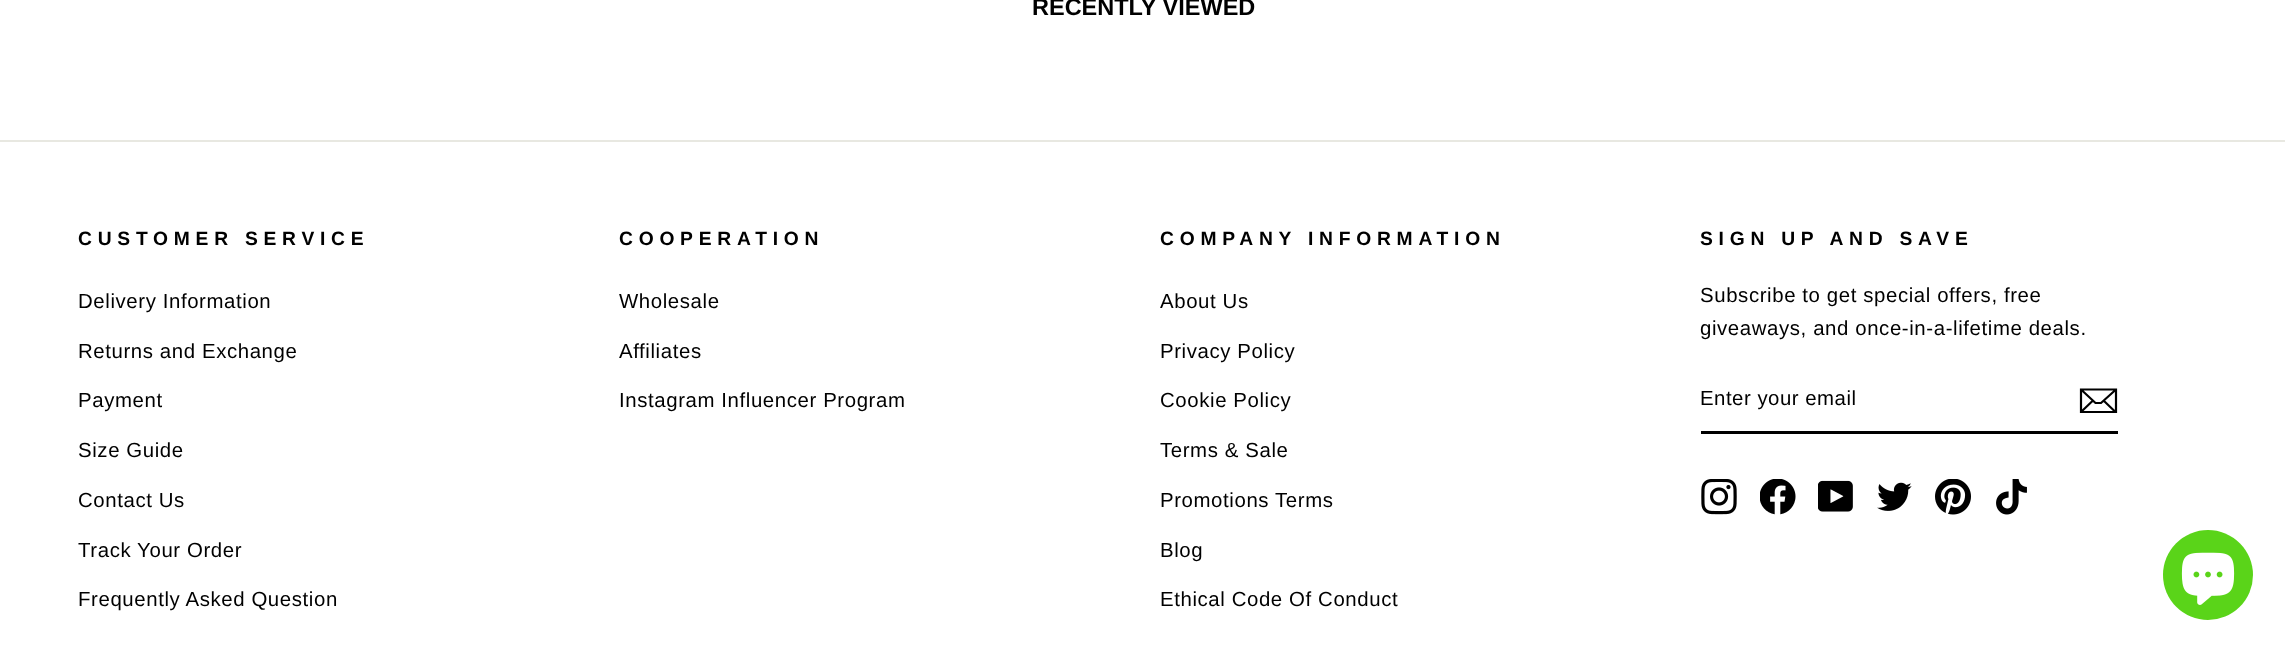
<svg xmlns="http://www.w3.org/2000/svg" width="2285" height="651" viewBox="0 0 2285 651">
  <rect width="100%" height="100%" fill="#ffffff"/>
  <text x="1032" y="15" font-family="Arimo" font-size="23.5" font-weight="bold" fill="#000000">RECENTLY VIEWED</text>
  <rect x="0" y="140" width="2285" height="2" fill="#e8e8e1"/>
  <text x="78" y="245" font-family="Arimo" font-size="19.25" font-weight="bold" letter-spacing="5.75" fill="#000000">CUSTOMER SERVICE</text>
  <text x="78" y="308" font-family="Arimo" font-size="20.4" letter-spacing="0.6" fill="#000000">Delivery Information</text>
  <text x="78" y="358" font-family="Arimo" font-size="20.4" letter-spacing="0.6" fill="#000000">Returns and Exchange</text>
  <text x="78" y="407" font-family="Arimo" font-size="20.4" letter-spacing="0.6" fill="#000000">Payment</text>
  <text x="78" y="457" font-family="Arimo" font-size="20.4" letter-spacing="0.6" fill="#000000">Size Guide</text>
  <text x="78" y="507" font-family="Arimo" font-size="20.4" letter-spacing="0.6" fill="#000000">Contact Us</text>
  <text x="78" y="557" font-family="Arimo" font-size="20.4" letter-spacing="0.6" fill="#000000">Track Your Order</text>
  <text x="78" y="606" font-family="Arimo" font-size="20.4" letter-spacing="0.6" fill="#000000">Frequently Asked Question</text>
  <text x="619" y="245" font-family="Arimo" font-size="19.25" font-weight="bold" letter-spacing="5.75" fill="#000000">COOPERATION</text>
  <text x="619" y="308" font-family="Arimo" font-size="20.4" letter-spacing="0.6" fill="#000000">Wholesale</text>
  <text x="619" y="358" font-family="Arimo" font-size="20.4" letter-spacing="0.6" fill="#000000">Affiliates</text>
  <text x="619" y="407" font-family="Arimo" font-size="20.4" letter-spacing="0.6" fill="#000000">Instagram Influencer Program</text>
  <text x="1160" y="245" font-family="Arimo" font-size="19.25" font-weight="bold" letter-spacing="5.75" fill="#000000">COMPANY INFORMATION</text>
  <text x="1160" y="308" font-family="Arimo" font-size="20.4" letter-spacing="0.6" fill="#000000">About Us</text>
  <text x="1160" y="358" font-family="Arimo" font-size="20.4" letter-spacing="0.6" fill="#000000">Privacy Policy</text>
  <text x="1160" y="407" font-family="Arimo" font-size="20.4" letter-spacing="0.6" fill="#000000">Cookie Policy</text>
  <text x="1160" y="457" font-family="Arimo" font-size="20.4" letter-spacing="0.6" fill="#000000">Terms &amp; Sale</text>
  <text x="1160" y="507" font-family="Arimo" font-size="20.4" letter-spacing="0.6" fill="#000000">Promotions Terms</text>
  <text x="1160" y="557" font-family="Arimo" font-size="20.4" letter-spacing="0.6" fill="#000000">Blog</text>
  <text x="1160" y="606" font-family="Arimo" font-size="20.4" letter-spacing="0.6" fill="#000000">Ethical Code Of Conduct</text>
  <text x="1700" y="245" font-family="Arimo" font-size="19.25" font-weight="bold" letter-spacing="5.75" fill="#000000">SIGN UP AND SAVE</text>
  <text x="1700" y="302" font-family="Arimo" font-size="20.4" letter-spacing="0.6" fill="#000000">Subscribe to get special offers, free</text>
  <text x="1700" y="335" font-family="Arimo" font-size="20.4" letter-spacing="0.6" fill="#000000">giveaways, and once-in-a-lifetime deals.</text>
  <rect x="1701" y="431" width="417" height="3" fill="#000000"/>
  <text x="1700" y="405" font-family="Arimo" font-size="20.4" letter-spacing="0.5" fill="#000000">Enter your email</text>
  <path d="M2116 412H2081V389.5H2116ZM2081 389.5L2095.5 403H2101L2116 389.5M2093 400.5L2081.5 411.5M2115.5 412L2103.5 400.5" fill="none" stroke="#000000" stroke-width="2.2"/>
  <image x="1701" y="479" width="36" height="36" href="img1.png"/>
  <image x="1760" y="479" width="36" height="36" href="img2.png"/>
  <image x="1818" y="480" width="35" height="32" href="img3.png"/>
  <image x="1877" y="482" width="35" height="29" href="img4.png"/>
  <image x="1935" y="479" width="36" height="36" href="img5.png"/>
  <image x="1996" y="479" width="31" height="36" href="img6.png"/>
  <circle cx="2208" cy="575" r="45" fill="#5ad419"/>
  <image x="2181" y="552" width="54" height="53" href="img7.png"/>
</svg>
